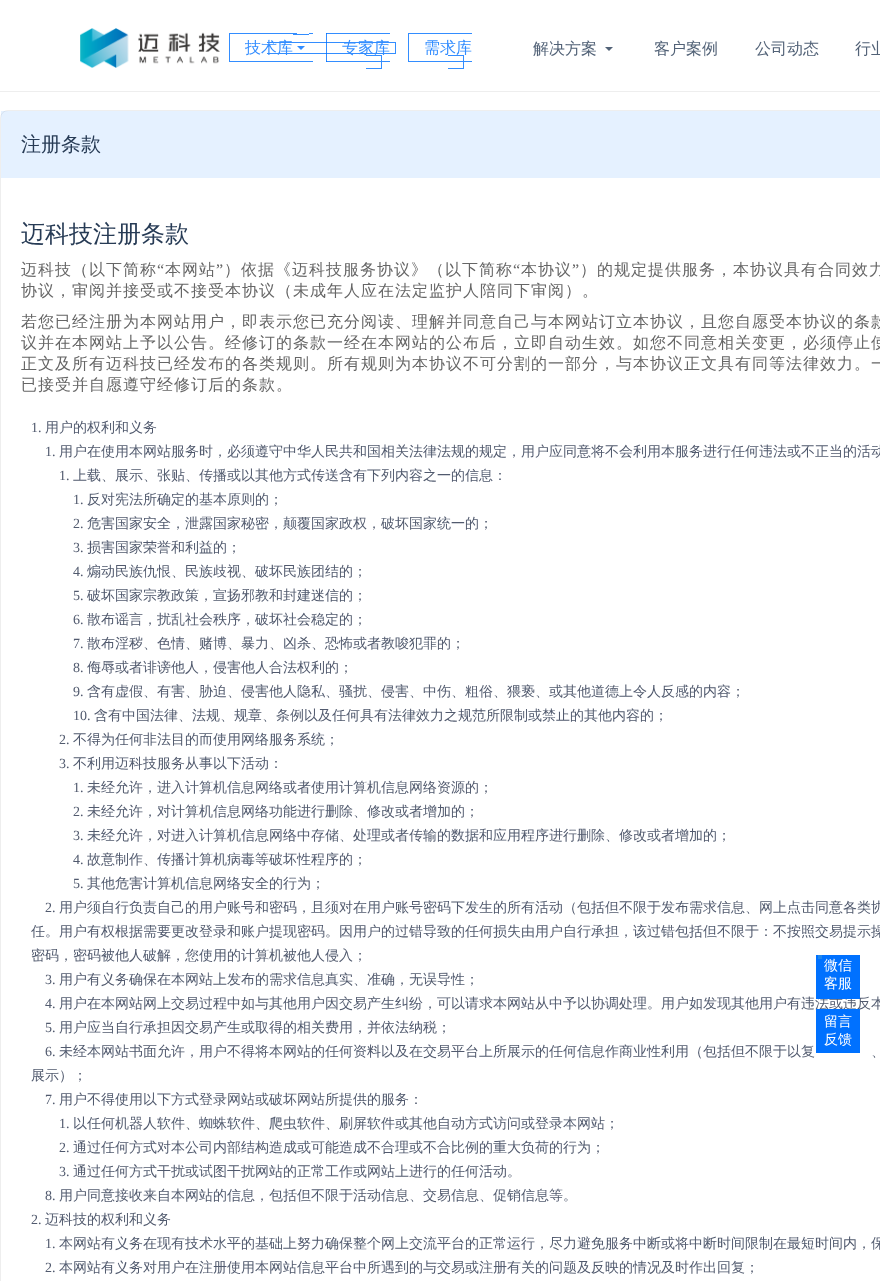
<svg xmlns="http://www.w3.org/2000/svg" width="880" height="1281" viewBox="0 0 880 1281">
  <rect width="100%" height="100%" fill="#ffffff"/>
  <rect x="326" y="33" width="1" height="29" fill="#338dff"/>
  <rect x="0" y="91" width="880" height="1" fill="#eeeeee"/>
  <image x="80" y="28" width="140" height="40" href="img1.png"/>
  <rect x="229" y="33" width="68" height="1" fill="#338dff"/>
  <rect x="229" y="61" width="84" height="1" fill="#338dff"/>
  <rect x="229" y="33" width="1" height="29" fill="#338dff"/>
  <rect x="293" y="34" width="16" height="1" fill="#338dff"/>
  <rect x="309" y="33" width="4" height="1" fill="#338dff"/>
  <rect x="267" y="42" width="129" height="1" fill="#338dff"/>
  <rect x="326" y="42" width="1" height="1" fill="#0a77ff"/>
  <rect x="395" y="42" width="1" height="12" fill="#338dff"/>
  <rect x="267" y="53" width="129" height="1" fill="#338dff"/>
  <rect x="326" y="53" width="1" height="1" fill="#0a77ff"/>
  <text x="245" y="53" font-family="WenQuanYi Zen Hei" font-size="16" font-weight="500" fill="#338dff">技术库</text>
  <path d="M297 46L301 50L305 46Z" fill="#338dff"/>
  <rect x="366" y="55" width="16" height="1" fill="#338dff"/>
  <rect x="326" y="61" width="64" height="1" fill="#338dff"/>
  <rect x="381" y="55" width="1" height="14" fill="#338dff"/>
  <text x="342" y="53" font-family="WenQuanYi Zen Hei" font-size="16" font-weight="500" fill="#338dff">专家库</text>
  <rect x="326" y="33" width="64" height="1" fill="#338dff"/>
  <rect x="326" y="33" width="1" height="1" fill="#0a77ff"/>
  <rect x="326" y="61" width="1" height="1" fill="#0a77ff"/>
  <rect x="366" y="68" width="16" height="1" fill="#338dff"/>
  <rect x="448" y="55" width="16" height="1" fill="#338dff"/>
  <rect x="408" y="61" width="64" height="1" fill="#338dff"/>
  <rect x="463" y="55" width="1" height="14" fill="#338dff"/>
  <text x="424" y="53" font-family="WenQuanYi Zen Hei" font-size="16" font-weight="500" fill="#338dff">需求库</text>
  <rect x="408" y="33" width="64" height="1" fill="#338dff"/>
  <rect x="408" y="33" width="1" height="29" fill="#338dff"/>
  <rect x="448" y="68" width="16" height="1" fill="#338dff"/>
  <text x="533" y="54" font-family="WenQuanYi Zen Hei" font-size="16" font-weight="500" fill="#526277">解决方案</text>
  <path d="M605 47L609 51L613 47Z" fill="#526277"/>
  <text x="654" y="54" font-family="WenQuanYi Zen Hei" font-size="16" font-weight="500" fill="#526277">客户案例</text>
  <text x="755" y="54" font-family="WenQuanYi Zen Hei" font-size="16" font-weight="500" fill="#526277">公司动态</text>
  <text x="855" y="54" font-family="WenQuanYi Zen Hei" font-size="16" font-weight="500" fill="#526277">行业</text>
  <rect x="0.5" y="110.5" width="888" height="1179" rx="7.5" fill="none" stroke="#eeeeee"/>
  <rect x="1" y="111" width="879" height="67" fill="#0071ff" fill-opacity="0.1"/>
  <text x="21" y="151" font-family="WenQuanYi Zen Hei" font-size="20" font-weight="500" fill="#273b55">注册条款</text>
  <text x="21" y="242" font-family="WenQuanYi Zen Hei" font-size="24" font-weight="500" fill="#273b55">迈科技注册条款</text>
  <text x="21" y="275" font-family="WenQuanYi Zen Hei" font-size="16" font-weight="500" letter-spacing="1" fill="#666666">迈科技（以下简称</text>
  <text x="157" y="275" font-family="Liberation Serif" font-size="16" letter-spacing="1" fill="#666666">“</text>
  <text x="165" y="275" font-family="WenQuanYi Zen Hei" font-size="16" font-weight="500" letter-spacing="1" fill="#666666">本网站</text>
  <text x="216" y="275" font-family="Liberation Serif" font-size="16" letter-spacing="1" fill="#666666">”</text>
  <text x="224" y="275" font-family="WenQuanYi Zen Hei" font-size="16" font-weight="500" letter-spacing="1" fill="#666666">）依据《迈科技服务协议》（以下简称</text>
  <text x="513" y="275" font-family="Liberation Serif" font-size="16" letter-spacing="1" fill="#666666">“</text>
  <text x="521" y="275" font-family="WenQuanYi Zen Hei" font-size="16" font-weight="500" letter-spacing="1" fill="#666666">本协议</text>
  <text x="572" y="275" font-family="Liberation Serif" font-size="16" letter-spacing="1" fill="#666666">”</text>
  <text x="580" y="275" font-family="WenQuanYi Zen Hei" font-size="16" font-weight="500" letter-spacing="1" fill="#666666">）的规定提供服务，本协议具有合同效力</text>
  <text x="21" y="296" font-family="WenQuanYi Zen Hei" font-size="16" font-weight="500" letter-spacing="1" fill="#666666">协议，审阅并接受或不接受本协议（未成年人应在法定监护人陪同下审阅）。</text>
  <text x="21" y="327" font-family="WenQuanYi Zen Hei" font-size="16" font-weight="500" letter-spacing="1" fill="#666666">若您已经注册为本网站用户，即表示您已充分阅读、理解并同意自己与本网站订立本协议，且您自愿受本协议的条款</text>
  <text x="21" y="348" font-family="WenQuanYi Zen Hei" font-size="16" font-weight="500" letter-spacing="1" fill="#666666">议并在本网站上予以公告。经修订的条款一经在本网站的公布后，立即自动生效。如您不同意相关变更，必须停止使</text>
  <text x="21" y="369" font-family="WenQuanYi Zen Hei" font-size="16" font-weight="500" letter-spacing="1" fill="#666666">正文及所有迈科技已经发布的各类规则。所有规则为本协议不可分割的一部分，与本协议正文具有同等法律效力。一</text>
  <text x="21" y="390" font-family="WenQuanYi Zen Hei" font-size="16" font-weight="500" letter-spacing="1" fill="#666666">已接受并自愿遵守经修订后的条款。</text>
  <text x="31" y="432" font-family="Liberation Serif" font-size="14" fill="#515a6e">1.</text>
  <text x="45" y="432" font-family="WenQuanYi Zen Hei" font-size="14" font-weight="500" fill="#515a6e">用户的权利和义务</text>
  <text x="45" y="456" font-family="Liberation Serif" font-size="14" fill="#515a6e">1.</text>
  <text x="59" y="456" font-family="WenQuanYi Zen Hei" font-size="14" font-weight="500" fill="#515a6e">用户在使用本网站服务时，必须遵守中华人民共和国相关法律法规的规定，用户应同意将不会利用本服务进行任何违法或不正当的活动</text>
  <text x="59" y="480" font-family="Liberation Serif" font-size="14" fill="#515a6e">1.</text>
  <text x="73" y="480" font-family="WenQuanYi Zen Hei" font-size="14" font-weight="500" fill="#515a6e">上载、展示、张贴、传播或以其他方式传送含有下列内容之一的信息：</text>
  <text x="73" y="504" font-family="Liberation Serif" font-size="14" fill="#515a6e">1.</text>
  <text x="87" y="504" font-family="WenQuanYi Zen Hei" font-size="14" font-weight="500" fill="#515a6e">反对宪法所确定的基本原则的；</text>
  <text x="73" y="528" font-family="Liberation Serif" font-size="14" fill="#515a6e">2.</text>
  <text x="87" y="528" font-family="WenQuanYi Zen Hei" font-size="14" font-weight="500" fill="#515a6e">危害国家安全，泄露国家秘密，颠覆国家政权，破坏国家统一的；</text>
  <text x="73" y="552" font-family="Liberation Serif" font-size="14" fill="#515a6e">3.</text>
  <text x="87" y="552" font-family="WenQuanYi Zen Hei" font-size="14" font-weight="500" fill="#515a6e">损害国家荣誉和利益的；</text>
  <text x="73" y="576" font-family="Liberation Serif" font-size="14" fill="#515a6e">4.</text>
  <text x="87" y="576" font-family="WenQuanYi Zen Hei" font-size="14" font-weight="500" fill="#515a6e">煽动民族仇恨、民族歧视、破坏民族团结的；</text>
  <text x="73" y="600" font-family="Liberation Serif" font-size="14" fill="#515a6e">5.</text>
  <text x="87" y="600" font-family="WenQuanYi Zen Hei" font-size="14" font-weight="500" fill="#515a6e">破坏国家宗教政策，宣扬邪教和封建迷信的；</text>
  <text x="73" y="624" font-family="Liberation Serif" font-size="14" fill="#515a6e">6.</text>
  <text x="87" y="624" font-family="WenQuanYi Zen Hei" font-size="14" font-weight="500" fill="#515a6e">散布谣言，扰乱社会秩序，破坏社会稳定的；</text>
  <text x="73" y="648" font-family="Liberation Serif" font-size="14" fill="#515a6e">7.</text>
  <text x="87" y="648" font-family="WenQuanYi Zen Hei" font-size="14" font-weight="500" fill="#515a6e">散布淫秽、色情、赌博、暴力、凶杀、恐怖或者教唆犯罪的；</text>
  <text x="73" y="672" font-family="Liberation Serif" font-size="14" fill="#515a6e">8.</text>
  <text x="87" y="672" font-family="WenQuanYi Zen Hei" font-size="14" font-weight="500" fill="#515a6e">侮辱或者诽谤他人，侵害他人合法权利的；</text>
  <text x="73" y="696" font-family="Liberation Serif" font-size="14" fill="#515a6e">9.</text>
  <text x="87" y="696" font-family="WenQuanYi Zen Hei" font-size="14" font-weight="500" fill="#515a6e">含有虚假、有害、胁迫、侵害他人隐私、骚扰、侵害、中伤、粗俗、猥亵、或其他道德上令人反感的内容；</text>
  <text x="73" y="720" font-family="Liberation Serif" font-size="14" fill="#515a6e">10.</text>
  <text x="94" y="720" font-family="WenQuanYi Zen Hei" font-size="14" font-weight="500" fill="#515a6e">含有中国法律、法规、规章、条例以及任何具有法律效力之规范所限制或禁止的其他内容的；</text>
  <text x="59" y="744" font-family="Liberation Serif" font-size="14" fill="#515a6e">2.</text>
  <text x="73" y="744" font-family="WenQuanYi Zen Hei" font-size="14" font-weight="500" fill="#515a6e">不得为任何非法目的而使用网络服务系统；</text>
  <text x="59" y="768" font-family="Liberation Serif" font-size="14" fill="#515a6e">3.</text>
  <text x="73" y="768" font-family="WenQuanYi Zen Hei" font-size="14" font-weight="500" fill="#515a6e">不利用迈科技服务从事以下活动：</text>
  <text x="73" y="792" font-family="Liberation Serif" font-size="14" fill="#515a6e">1.</text>
  <text x="87" y="792" font-family="WenQuanYi Zen Hei" font-size="14" font-weight="500" fill="#515a6e">未经允许，进入计算机信息网络或者使用计算机信息网络资源的；</text>
  <text x="73" y="816" font-family="Liberation Serif" font-size="14" fill="#515a6e">2.</text>
  <text x="87" y="816" font-family="WenQuanYi Zen Hei" font-size="14" font-weight="500" fill="#515a6e">未经允许，对计算机信息网络功能进行删除、修改或者增加的；</text>
  <text x="73" y="840" font-family="Liberation Serif" font-size="14" fill="#515a6e">3.</text>
  <text x="87" y="840" font-family="WenQuanYi Zen Hei" font-size="14" font-weight="500" fill="#515a6e">未经允许，对进入计算机信息网络中存储、处理或者传输的数据和应用程序进行删除、修改或者增加的；</text>
  <text x="73" y="864" font-family="Liberation Serif" font-size="14" fill="#515a6e">4.</text>
  <text x="87" y="864" font-family="WenQuanYi Zen Hei" font-size="14" font-weight="500" fill="#515a6e">故意制作、传播计算机病毒等破坏性程序的；</text>
  <text x="73" y="888" font-family="Liberation Serif" font-size="14" fill="#515a6e">5.</text>
  <text x="87" y="888" font-family="WenQuanYi Zen Hei" font-size="14" font-weight="500" fill="#515a6e">其他危害计算机信息网络安全的行为；</text>
  <text x="45" y="912" font-family="Liberation Serif" font-size="14" fill="#515a6e">2.</text>
  <text x="59" y="912" font-family="WenQuanYi Zen Hei" font-size="14" font-weight="500" fill="#515a6e">用户须自行负责自己的用户账号和密码，且须对在用户账号密码下发生的所有活动（包括但不限于发布需求信息、网上点击同意各类协</text>
  <text x="31" y="936" font-family="WenQuanYi Zen Hei" font-size="14" font-weight="500" fill="#515a6e">任。用户有权根据需要更改登录和账户提现密码。因用户的过错导致的任何损失由用户自行承担，该过错包括但不限于：不按照交易提示操</text>
  <text x="31" y="960" font-family="WenQuanYi Zen Hei" font-size="14" font-weight="500" fill="#515a6e">密码，密码被他人破解，您使用的计算机被他人侵入；</text>
  <text x="45" y="984" font-family="Liberation Serif" font-size="14" fill="#515a6e">3.</text>
  <text x="59" y="984" font-family="WenQuanYi Zen Hei" font-size="14" font-weight="500" fill="#515a6e">用户有义务确保在本网站上发布的需求信息真实、准确，无误导性；</text>
  <text x="45" y="1008" font-family="Liberation Serif" font-size="14" fill="#515a6e">4.</text>
  <text x="59" y="1008" font-family="WenQuanYi Zen Hei" font-size="14" font-weight="500" fill="#515a6e">用户在本网站网上交易过程中如与其他用户因交易产生纠纷，可以请求本网站从中予以协调处理。用户如发现其他用户有违法或违反本</text>
  <text x="45" y="1032" font-family="Liberation Serif" font-size="14" fill="#515a6e">5.</text>
  <text x="59" y="1032" font-family="WenQuanYi Zen Hei" font-size="14" font-weight="500" fill="#515a6e">用户应当自行承担因交易产生或取得的相关费用，并依法纳税；</text>
  <text x="45" y="1056" font-family="Liberation Serif" font-size="14" fill="#515a6e">6.</text>
  <text x="59" y="1056" font-family="WenQuanYi Zen Hei" font-size="14" font-weight="500" fill="#515a6e">未经本网站书面允许，用户不得将本网站的任何资料以及在交易平台上所展示的任何信息作商业性利用（包括但不限于以复</text>
  <text x="871" y="1056" font-family="WenQuanYi Zen Hei" font-size="14" font-weight="500" fill="#515a6e">、</text>
  <text x="31" y="1080" font-family="WenQuanYi Zen Hei" font-size="14" font-weight="500" fill="#515a6e">展示）；</text>
  <text x="45" y="1104" font-family="Liberation Serif" font-size="14" fill="#515a6e">7.</text>
  <text x="59" y="1104" font-family="WenQuanYi Zen Hei" font-size="14" font-weight="500" fill="#515a6e">用户不得使用以下方式登录网站或破坏网站所提供的服务：</text>
  <text x="59" y="1128" font-family="Liberation Serif" font-size="14" fill="#515a6e">1.</text>
  <text x="73" y="1128" font-family="WenQuanYi Zen Hei" font-size="14" font-weight="500" fill="#515a6e">以任何机器人软件、蜘蛛软件、爬虫软件、刷屏软件或其他自动方式访问或登录本网站；</text>
  <text x="59" y="1152" font-family="Liberation Serif" font-size="14" fill="#515a6e">2.</text>
  <text x="73" y="1152" font-family="WenQuanYi Zen Hei" font-size="14" font-weight="500" fill="#515a6e">通过任何方式对本公司内部结构造成或可能造成不合理或不合比例的重大负荷的行为；</text>
  <text x="59" y="1176" font-family="Liberation Serif" font-size="14" fill="#515a6e">3.</text>
  <text x="73" y="1176" font-family="WenQuanYi Zen Hei" font-size="14" font-weight="500" fill="#515a6e">通过任何方式干扰或试图干扰网站的正常工作或网站上进行的任何活动。</text>
  <text x="45" y="1200" font-family="Liberation Serif" font-size="14" fill="#515a6e">8.</text>
  <text x="59" y="1200" font-family="WenQuanYi Zen Hei" font-size="14" font-weight="500" fill="#515a6e">用户同意接收来自本网站的信息，包括但不限于活动信息、交易信息、促销信息等。</text>
  <text x="31" y="1224" font-family="Liberation Serif" font-size="14" fill="#515a6e">2.</text>
  <text x="45" y="1224" font-family="WenQuanYi Zen Hei" font-size="14" font-weight="500" fill="#515a6e">迈科技的权利和义务</text>
  <text x="45" y="1248" font-family="Liberation Serif" font-size="14" fill="#515a6e">1.</text>
  <text x="59" y="1248" font-family="WenQuanYi Zen Hei" font-size="14" font-weight="500" fill="#515a6e">本网站有义务在现有技术水平的基础上努力确保整个网上交流平台的正常运行，尽力避免服务中断或将中断时间限制在最短时间内，保</text>
  <text x="45" y="1272" font-family="Liberation Serif" font-size="14" fill="#515a6e">2.</text>
  <text x="59" y="1272" font-family="WenQuanYi Zen Hei" font-size="14" font-weight="500" fill="#515a6e">本网站有义务对用户在注册使用本网站信息平台中所遇到的与交易或注册有关的问题及反映的情况及时作出回复；</text>
  <rect x="816" y="955" width="44" height="44" fill="#0071ff"/>
  <rect x="818" y="955" width="4" height="4" fill="#1f86ed"/>
  <text x="824" y="970" font-family="WenQuanYi Zen Hei" font-size="14" font-weight="500" fill="#ffffff">微信</text>
  <text x="824" y="988" font-family="WenQuanYi Zen Hei" font-size="14" font-weight="500" fill="#ffffff">客服</text>
  <rect x="816" y="1009" width="44" height="44" fill="#0071ff"/>
  <text x="824" y="1026" font-family="WenQuanYi Zen Hei" font-size="14" font-weight="500" fill="#ffffff">留言</text>
  <text x="824" y="1044" font-family="WenQuanYi Zen Hei" font-size="14" font-weight="500" fill="#ffffff">反馈</text>
</svg>
